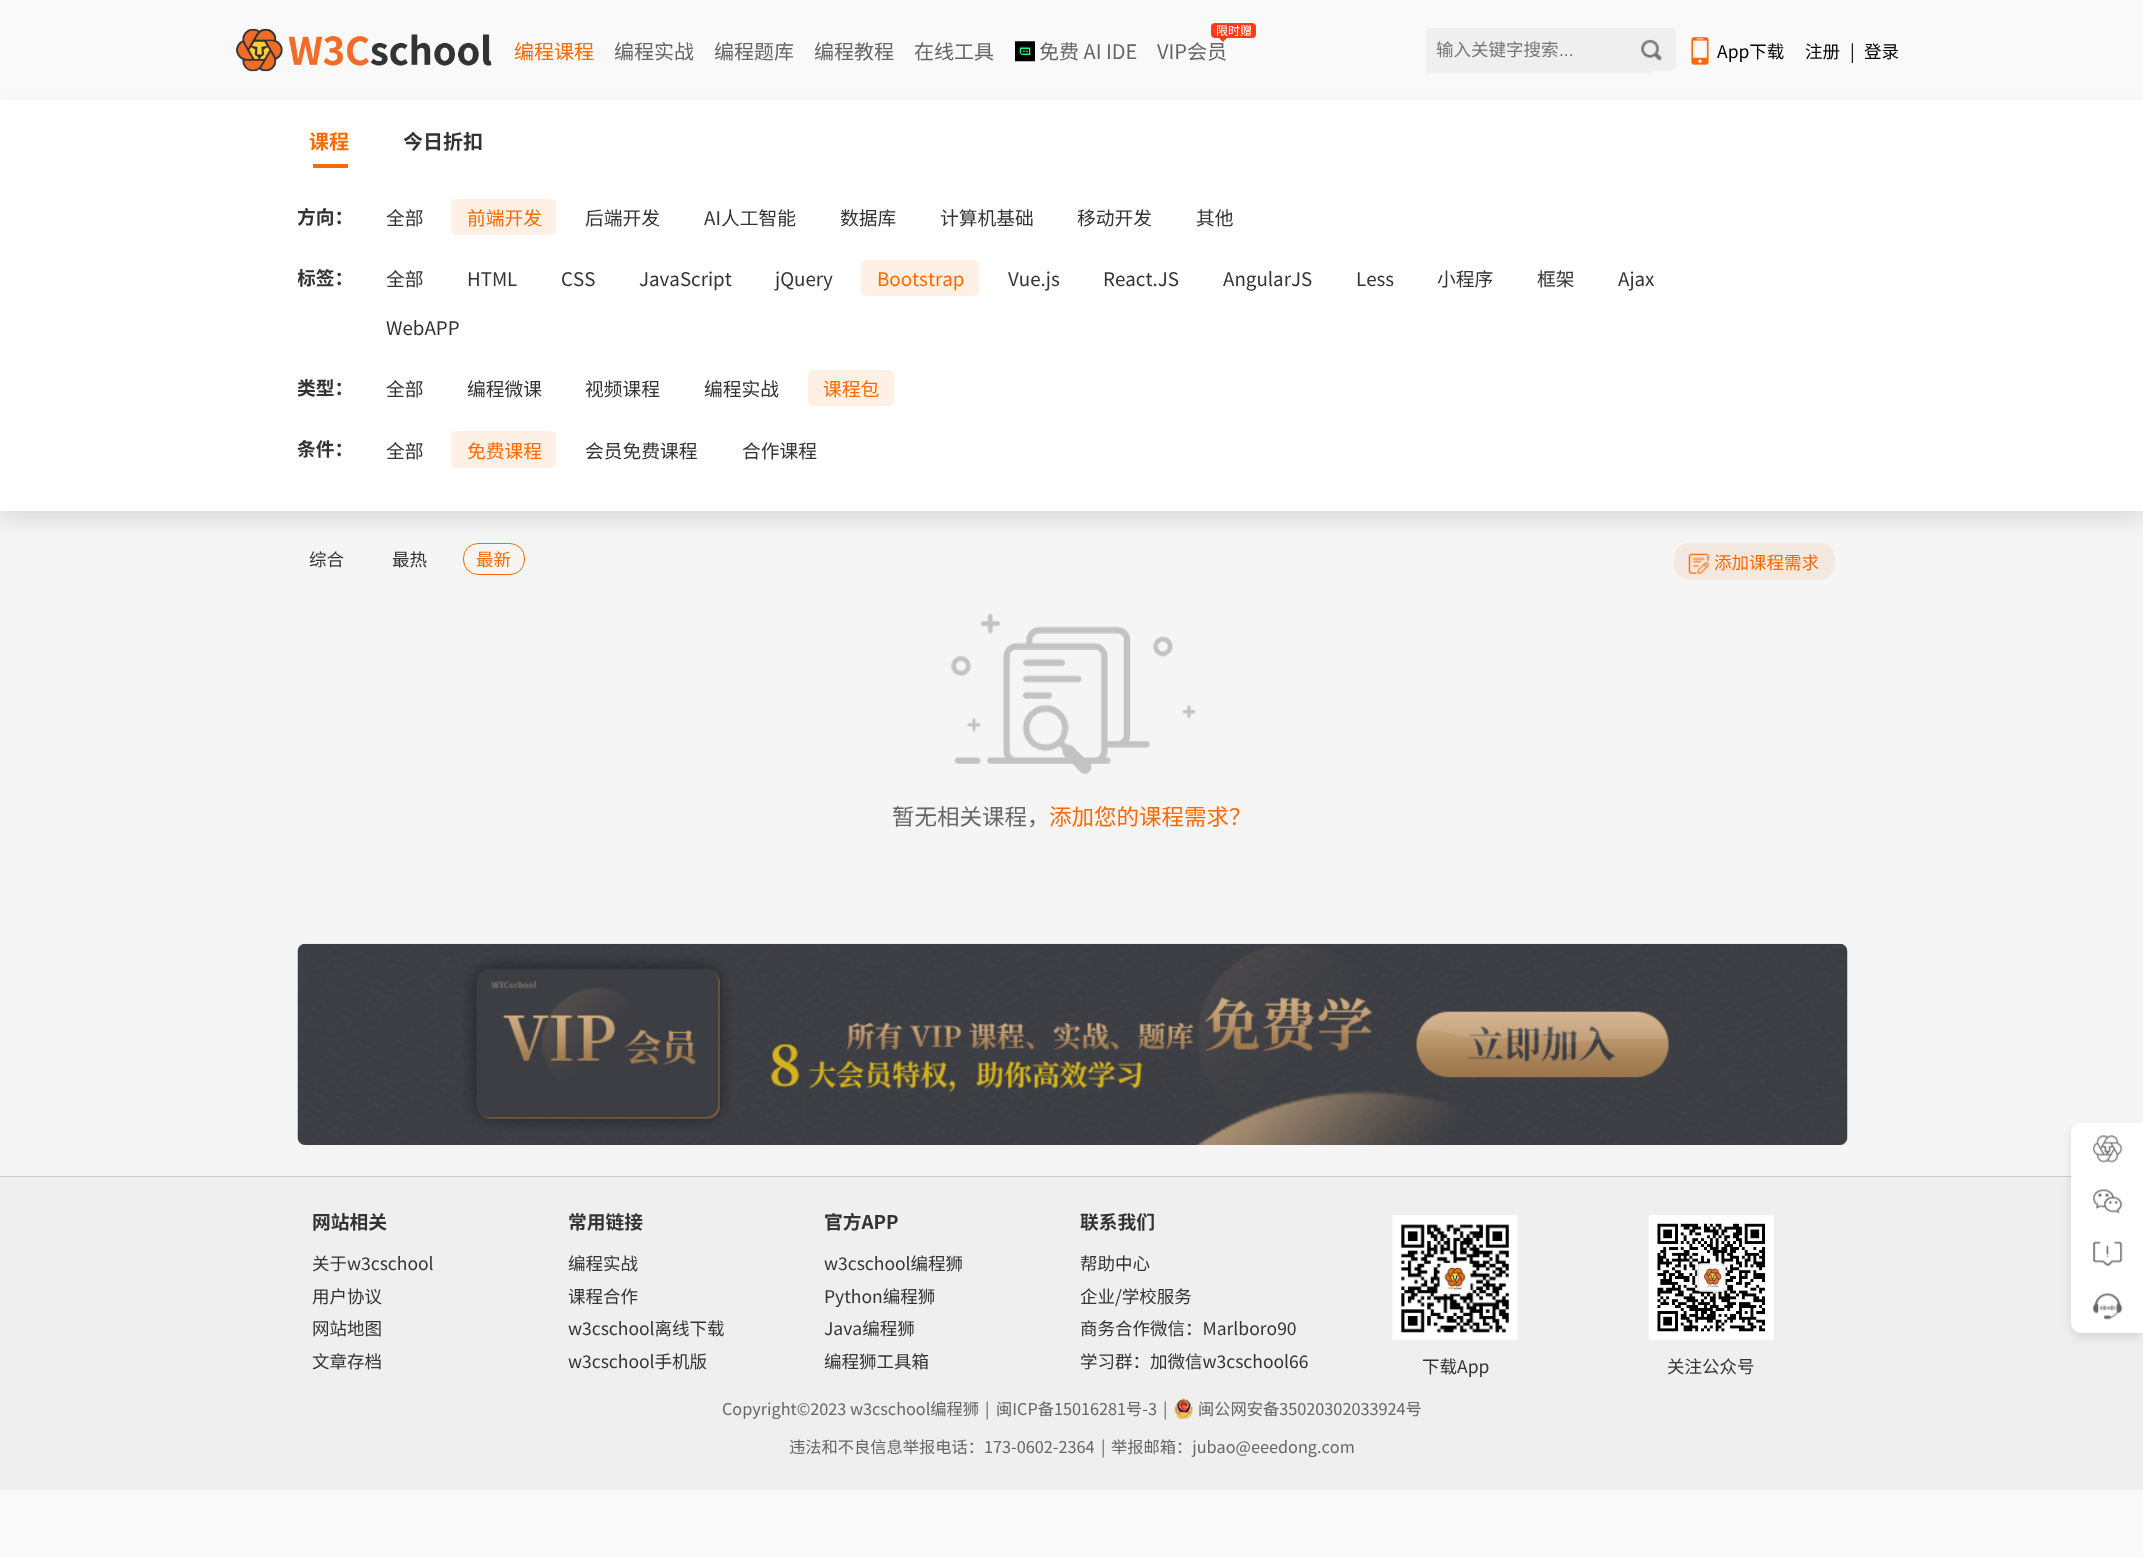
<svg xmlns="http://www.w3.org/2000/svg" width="2143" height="1557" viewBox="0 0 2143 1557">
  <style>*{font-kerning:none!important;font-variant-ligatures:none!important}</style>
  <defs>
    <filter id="blur1" x="-50%" y="-200%" width="200%" height="500%"><feGaussianBlur stdDeviation="10"/></filter>
    <clipPath id="clip1"><rect x="298" y="193" width="1550" height="61"/></clipPath>
    <clipPath id="clip2"><rect x="298" y="254" width="1550" height="110"/></clipPath>
    <clipPath id="clip3"><rect x="298" y="364" width="1550" height="61"/></clipPath>
    <filter id="blur2" x="-50%" y="-200%" width="200%" height="500%"><feGaussianBlur stdDeviation="5"/></filter>
  </defs>
  <rect width="100%" height="100%" fill="#f9f9f9"/>
  <image x="236" y="28" width="256" height="44" href="img1.png"/>
  <text x="514" y="59" font-family="Noto Sans CJK SC" font-size="20" fill="#fe6a00">编程课程</text>
  <text x="614" y="59" font-family="Noto Sans CJK SC" font-size="20" fill="#666666">编程实战</text>
  <text x="714" y="59" font-family="Noto Sans CJK SC" font-size="20" fill="#666666">编程题库</text>
  <text x="814" y="59" font-family="Noto Sans CJK SC" font-size="20" fill="#666666">编程教程</text>
  <text x="914" y="59" font-family="Noto Sans CJK SC" font-size="20" fill="#666666">在线工具</text>
  <image x="1015" y="41" width="20" height="21" href="img2.png"/>
  <text x="1039" y="59" font-family="Noto Sans CJK SC" font-size="20" fill="#666666">免费 AI IDE</text>
  <rect x="1211" y="23" width="45" height="15" rx="4" fill="#ff3c1a"/>
  <text x="1216" y="35" font-family="Noto Sans CJK SC" font-size="12" fill="#ffffff">限时赠</text>
  <path d="M1218 37H1228L1223 42Z" fill="#ff3c1a"/>
  <text x="1157" y="59" font-family="Noto Sans CJK SC" font-size="20" fill="#666666">VIP会员</text>
  <rect x="1426" y="28" width="250" height="43" rx="5" fill="#efefef"/>
  <rect x="1426" y="29" width="225" height="44" fill="#efefef"/>
  <text x="1436" y="56" font-family="Noto Sans CJK SC" font-size="17.5" fill="#757575">输入关键字搜索</text>
  <text x="1559" y="56" font-family="Liberation Sans" font-size="17.5" fill="#757575">...</text>
  <image x="1641" y="39" width="21" height="22" href="img3.png"/>
  <image x="1691" y="37" width="18" height="28" href="img4.png"/>
  <text x="1717" y="58" font-family="Noto Sans CJK SC" font-size="17.5" fill="#000000">App下载</text>
  <text x="1805" y="58" font-family="Noto Sans CJK SC" font-size="17.5" fill="#000000">注册</text>
  <text x="1850" y="58" font-family="Noto Sans CJK SC" font-size="17.5" fill="#000000">|</text>
  <text x="1864" y="58" font-family="Noto Sans CJK SC" font-size="17.5" fill="#000000">登录</text>
  <rect x="0" y="511" width="2143" height="665" fill="#f5f5f5"/>
  <rect x="463.5" y="543.5" width="61" height="31" rx="14.5" fill="none" stroke="#fe6a00"/>
  <rect x="1674" y="543" width="161" height="37" rx="15" fill="#f4e9e1"/>
  <rect x="0" y="110" width="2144" height="411" fill="#1c1f21" fill-opacity="0.1" filter="url(#blur1)"/>
  <rect x="0" y="100" width="2143" height="411" fill="#ffffff"/>
  <text x="309" y="149" font-family="Noto Sans CJK SC" font-size="20" font-weight="bold" fill="#fe6a00">课程</text>
  <rect x="313" y="164" width="35" height="4" fill="#fe6a00"/>
  <text x="403" y="149" font-family="Noto Sans CJK SC" font-size="20" font-weight="bold" fill="#333333">今日折扣</text>
  <g clip-path="url(#clip1)">
    <text x="297" y="224" font-family="Noto Sans CJK SC" font-size="18.75" font-weight="bold" fill="#333333">方向：</text>
  </g>
  <text x="386" y="225" font-family="Noto Sans CJK SC" font-size="18.75" fill="#333333">全部</text>
  <rect x="451" y="199" width="105" height="36" rx="5" fill="#fff0e5"/>
  <text x="467" y="225" font-family="Noto Sans CJK SC" font-size="18.75" fill="#fe6a00">前端开发</text>
  <text x="585" y="225" font-family="Noto Sans CJK SC" font-size="18.75" fill="#333333">后端开发</text>
  <text x="704" y="225" font-family="Noto Sans CJK SC" font-size="18.75" fill="#333333">AI人工智能</text>
  <text x="840" y="225" font-family="Noto Sans CJK SC" font-size="18.75" fill="#333333">数据库</text>
  <text x="940" y="225" font-family="Noto Sans CJK SC" font-size="18.75" fill="#333333">计算机基础</text>
  <text x="1077" y="225" font-family="Noto Sans CJK SC" font-size="18.75" fill="#333333">移动开发</text>
  <text x="1196" y="225" font-family="Noto Sans CJK SC" font-size="18.75" fill="#333333">其他</text>
  <g clip-path="url(#clip2)">
    <text x="297" y="285" font-family="Noto Sans CJK SC" font-size="18.75" font-weight="bold" fill="#333333">标签：</text>
  </g>
  <text x="386" y="286" font-family="Noto Sans CJK SC" font-size="18.75" fill="#333333">全部</text>
  <text x="467" y="286" font-family="Noto Sans CJK SC" font-size="18.75" fill="#333333">HTML</text>
  <text x="561" y="286" font-family="Noto Sans CJK SC" font-size="18.75" fill="#333333">CSS</text>
  <text x="639" y="286" font-family="Noto Sans CJK SC" font-size="18.75" fill="#333333">JavaScript</text>
  <text x="775" y="286" font-family="Noto Sans CJK SC" font-size="18.75" fill="#333333">jQuery</text>
  <rect x="861" y="260" width="118" height="36" rx="5" fill="#fff0e5"/>
  <text x="877" y="286" font-family="Noto Sans CJK SC" font-size="18.75" fill="#fe6a00">Bootstrap</text>
  <text x="1008" y="286" font-family="Noto Sans CJK SC" font-size="18.75" fill="#333333">Vue.js</text>
  <text x="1103" y="286" font-family="Noto Sans CJK SC" font-size="18.75" fill="#333333">React.JS</text>
  <text x="1223" y="286" font-family="Noto Sans CJK SC" font-size="18.75" fill="#333333">AngularJS</text>
  <text x="1356" y="286" font-family="Noto Sans CJK SC" font-size="18.75" fill="#333333">Less</text>
  <text x="1437" y="286" font-family="Noto Sans CJK SC" font-size="18.75" fill="#333333">小程序</text>
  <text x="1537" y="286" font-family="Noto Sans CJK SC" font-size="18.75" fill="#333333">框架</text>
  <text x="1618" y="286" font-family="Noto Sans CJK SC" font-size="18.75" fill="#333333">Ajax</text>
  <text x="386" y="335" font-family="Noto Sans CJK SC" font-size="18.75" fill="#333333">WebAPP</text>
  <g clip-path="url(#clip3)">
    <text x="297" y="395" font-family="Noto Sans CJK SC" font-size="18.75" font-weight="bold" fill="#333333">类型：</text>
  </g>
  <text x="386" y="396" font-family="Noto Sans CJK SC" font-size="18.75" fill="#333333">全部</text>
  <text x="467" y="396" font-family="Noto Sans CJK SC" font-size="18.75" fill="#333333">编程微课</text>
  <text x="585" y="396" font-family="Noto Sans CJK SC" font-size="18.75" fill="#333333">视频课程</text>
  <text x="704" y="396" font-family="Noto Sans CJK SC" font-size="18.75" fill="#333333">编程实战</text>
  <rect x="808" y="370" width="86" height="36" rx="5" fill="#fff0e5"/>
  <text x="823" y="396" font-family="Noto Sans CJK SC" font-size="18.75" fill="#fe6a00">课程包</text>
  <text x="297" y="456" font-family="Noto Sans CJK SC" font-size="18.75" font-weight="bold" fill="#333333">条件：</text>
  <text x="386" y="458" font-family="Noto Sans CJK SC" font-size="18.75" fill="#333333">全部</text>
  <rect x="451" y="431" width="105" height="37" rx="5" fill="#fff0e5"/>
  <text x="467" y="458" font-family="Noto Sans CJK SC" font-size="18.75" fill="#fe6a00">免费课程</text>
  <text x="585" y="458" font-family="Noto Sans CJK SC" font-size="18.75" fill="#333333">会员免费课程</text>
  <text x="742" y="458" font-family="Noto Sans CJK SC" font-size="18.75" fill="#333333">合作课程</text>
  <text x="309" y="566" font-family="Noto Sans CJK SC" font-size="17.5" fill="#333333">综合</text>
  <text x="392" y="566" font-family="Noto Sans CJK SC" font-size="17.5" fill="#333333">最热</text>
  <text x="476" y="566" font-family="Noto Sans CJK SC" font-size="17.5" fill="#fe6a00">最新</text>
  <image x="1688" y="553" width="21" height="21" href="img5.png"/>
  <text x="1714" y="569" font-family="Noto Sans CJK SC" font-size="17.5" fill="#fe6a00">添加课程需求</text>
  <image x="951" y="613" width="245" height="161" href="img6.png"/>
  <text x="892" y="825" font-family="Noto Sans CJK SC" font-size="22.5" fill="#666666">暂无相关课程，</text>
  <text x="1049" y="825" font-family="Noto Sans CJK SC" font-size="22.5" fill="#fe6a00">添加您的课程需求？</text>
  <image x="297" y="943" width="1551" height="202" href="img7.png"/>
  <rect x="0" y="1177" width="2143" height="313" fill="#efefef"/>
  <rect x="0" y="1176" width="2071" height="1" fill="#cccccc"/>
  <text x="312" y="1229" font-family="Noto Sans CJK SC" font-size="18.75" font-weight="bold" fill="#333333">网站相关</text>
  <text x="312" y="1270" font-family="Noto Sans CJK SC" font-size="17.5" fill="#333333">关于w3cschool</text>
  <text x="312" y="1303" font-family="Noto Sans CJK SC" font-size="17.5" fill="#333333">用户协议</text>
  <text x="312" y="1335" font-family="Noto Sans CJK SC" font-size="17.5" fill="#333333">网站地图</text>
  <text x="312" y="1368" font-family="Noto Sans CJK SC" font-size="17.5" fill="#333333">文章存档</text>
  <text x="568" y="1229" font-family="Noto Sans CJK SC" font-size="18.75" font-weight="bold" fill="#333333">常用链接</text>
  <text x="568" y="1270" font-family="Noto Sans CJK SC" font-size="17.5" fill="#333333">编程实战</text>
  <text x="568" y="1303" font-family="Noto Sans CJK SC" font-size="17.5" fill="#333333">课程合作</text>
  <text x="568" y="1335" font-family="Noto Sans CJK SC" font-size="17.5" fill="#333333">w3cschool离线下载</text>
  <text x="568" y="1368" font-family="Noto Sans CJK SC" font-size="17.5" fill="#333333">w3cschool手机版</text>
  <text x="824" y="1229" font-family="Noto Sans CJK SC" font-size="18.75" font-weight="bold" fill="#333333">官方APP</text>
  <text x="824" y="1270" font-family="Noto Sans CJK SC" font-size="17.5" fill="#333333">w3cschool编程狮</text>
  <text x="824" y="1303" font-family="Noto Sans CJK SC" font-size="17.5" fill="#333333">Python编程狮</text>
  <text x="824" y="1335" font-family="Noto Sans CJK SC" font-size="17.5" fill="#333333">Java编程狮</text>
  <text x="824" y="1368" font-family="Noto Sans CJK SC" font-size="17.5" fill="#333333">编程狮工具箱</text>
  <text x="1080" y="1229" font-family="Noto Sans CJK SC" font-size="18.75" font-weight="bold" fill="#333333">联系我们</text>
  <text x="1080" y="1270" font-family="Noto Sans CJK SC" font-size="17.5" fill="#333333">帮助中心</text>
  <text x="1080" y="1303" font-family="Noto Sans CJK SC" font-size="17.5" fill="#333333">企业/学校服务</text>
  <text x="1080" y="1335" font-family="Noto Sans CJK SC" font-size="17.5" fill="#333333">商务合作微信：Marlboro90</text>
  <text x="1080" y="1368" font-family="Noto Sans CJK SC" font-size="17.5" fill="#333333">学习群：加微信w3cschool66</text>
  <image x="1392" y="1215" width="126" height="125" href="img8.png"/>
  <text x="1422" y="1373" font-family="Noto Sans CJK SC" font-size="17.5" fill="#333333">下载App</text>
  <image x="1648" y="1215" width="126" height="125" href="img9.png"/>
  <text x="1667" y="1373" font-family="Noto Sans CJK SC" font-size="17.5" fill="#333333">关注公众号</text>
  <text x="722" y="1415" font-family="Noto Sans CJK SC" font-size="16.25" fill="#666666">Copyright©2023 w3cschool编程狮</text>
  <text x="985" y="1415" font-family="Noto Sans CJK SC" font-size="16.25" fill="#666666">|</text>
  <text x="996" y="1415" font-family="Noto Sans CJK SC" font-size="16.25" fill="#666666">闽ICP备15016281号-3</text>
  <text x="1163" y="1415" font-family="Noto Sans CJK SC" font-size="16.25" fill="#666666">|</text>
  <image x="1174" y="1398" width="19" height="21" href="img10.png"/>
  <text x="1198" y="1415" font-family="Noto Sans CJK SC" font-size="16.25" fill="#666666">闽公网安备35020302033924号</text>
  <text x="789" y="1453" font-family="Noto Sans CJK SC" font-size="16.25" fill="#666666">违法和不良信息举报电话：173-0602-2364</text>
  <text x="1101" y="1453" font-family="Noto Sans CJK SC" font-size="16.25" fill="#666666">|</text>
  <text x="1111" y="1453" font-family="Noto Sans CJK SC" font-size="16.25" fill="#666666">举报邮箱：jubao@eeedong.com</text>
  <rect x="2071" y="1128" width="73" height="210" rx="10" fill="#07111b" fill-opacity="0.1" filter="url(#blur2)"/>
  <path d="M2081 1123H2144V1333H2081C2075.5 1333 2071 1328.5 2071 1323V1133C2071 1127.5 2075.5 1123 2081 1123Z" fill="#ffffff"/>
  <image x="2093" y="1135" width="30" height="28" href="img11.png"/>
  <image x="2093" y="1189" width="30" height="25" href="img12.png"/>
  <image x="2093" y="1241" width="30" height="26" href="img13.png"/>
  <image x="2093" y="1293" width="30" height="27" href="img14.png"/>
</svg>
